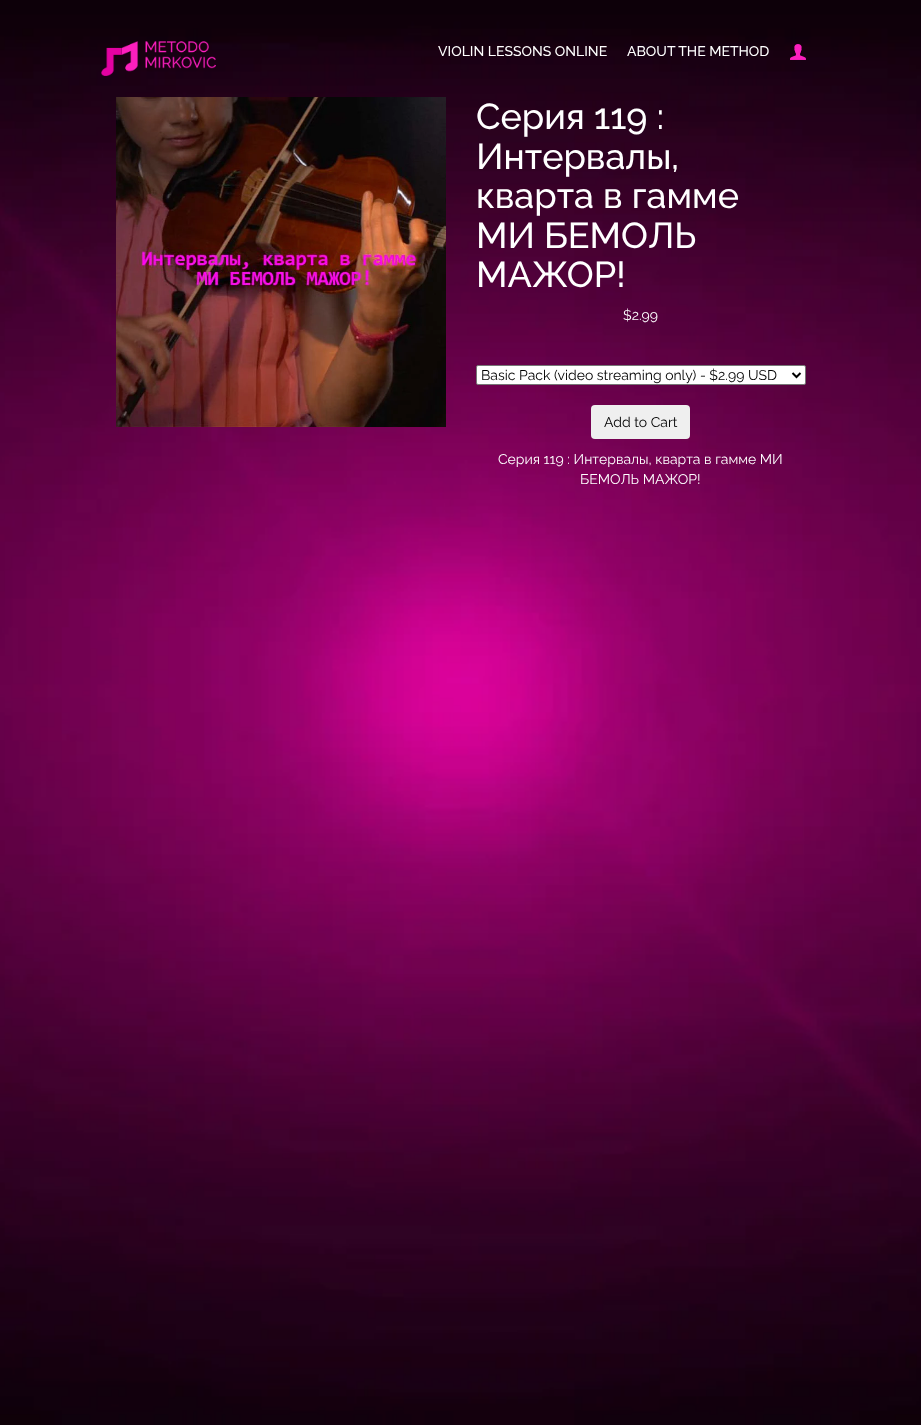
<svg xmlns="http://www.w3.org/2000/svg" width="921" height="1425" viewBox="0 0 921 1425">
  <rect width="100%" height="100%" fill="#ffffff"/>
  <image x="0" y="0" width="921" height="1425" href="img1.png"/>
  <image x="101" y="41" width="115" height="35" href="img2.png"/>
  <text x="438" y="56" font-family="Raleway" font-size="14" font-weight="500" fill="#ffffff">VIOLIN LESSONS ONLINE</text>
  <text x="627" y="56" font-family="Raleway" font-size="14" font-weight="500" fill="#ffffff">ABOUT THE METHOD</text>
  <image x="790" y="44" width="16" height="16" href="img3.png"/>
  <image x="116" y="97" width="330" height="330" href="img4.png"/>
  <text x="476" y="129" font-family="Raleway" font-size="36" font-weight="500" fill="#ffffff">Серия 119 :</text>
  <text x="476" y="169" font-family="Raleway" font-size="36" font-weight="500" fill="#ffffff">Интервалы,</text>
  <text x="476" y="208" font-family="Raleway" font-size="36" font-weight="500" fill="#ffffff">кварта в гамме</text>
  <text x="476" y="248" font-family="Raleway" font-size="36" font-weight="500" fill="#ffffff">МИ БЕМОЛЬ</text>
  <text x="476" y="287" font-family="Raleway" font-size="36" font-weight="500" fill="#ffffff">МАЖОР!</text>
  <text x="623" y="320" font-family="Raleway" font-size="14" fill="#ffffff">$2.99</text>
  <rect x="476.5" y="365.5" width="329" height="19" rx="1.5" fill="#ffffff" stroke="#767676"/>
  <path d="M792.5 373L796.5 377L800.5 373" fill="none" stroke="#000000" stroke-width="2"/>
  <text x="481" y="380" font-family="Raleway" font-size="14" fill="#000000">Basic Pack (video streaming only) - $2.99 USD</text>
  <rect x="591" y="405" width="99" height="34" rx="4" fill="#efefef"/>
  <text x="604" y="427" font-family="Raleway" font-size="14" fill="#000000">Add to Cart</text>
  <text x="498" y="464" font-family="Raleway" font-size="14" fill="#ffffff">Серия 119 : Интервалы, кварта в гамме МИ</text>
  <text x="580" y="484" font-family="Raleway" font-size="14" fill="#ffffff">БЕМОЛЬ МАЖОР!</text>
</svg>
